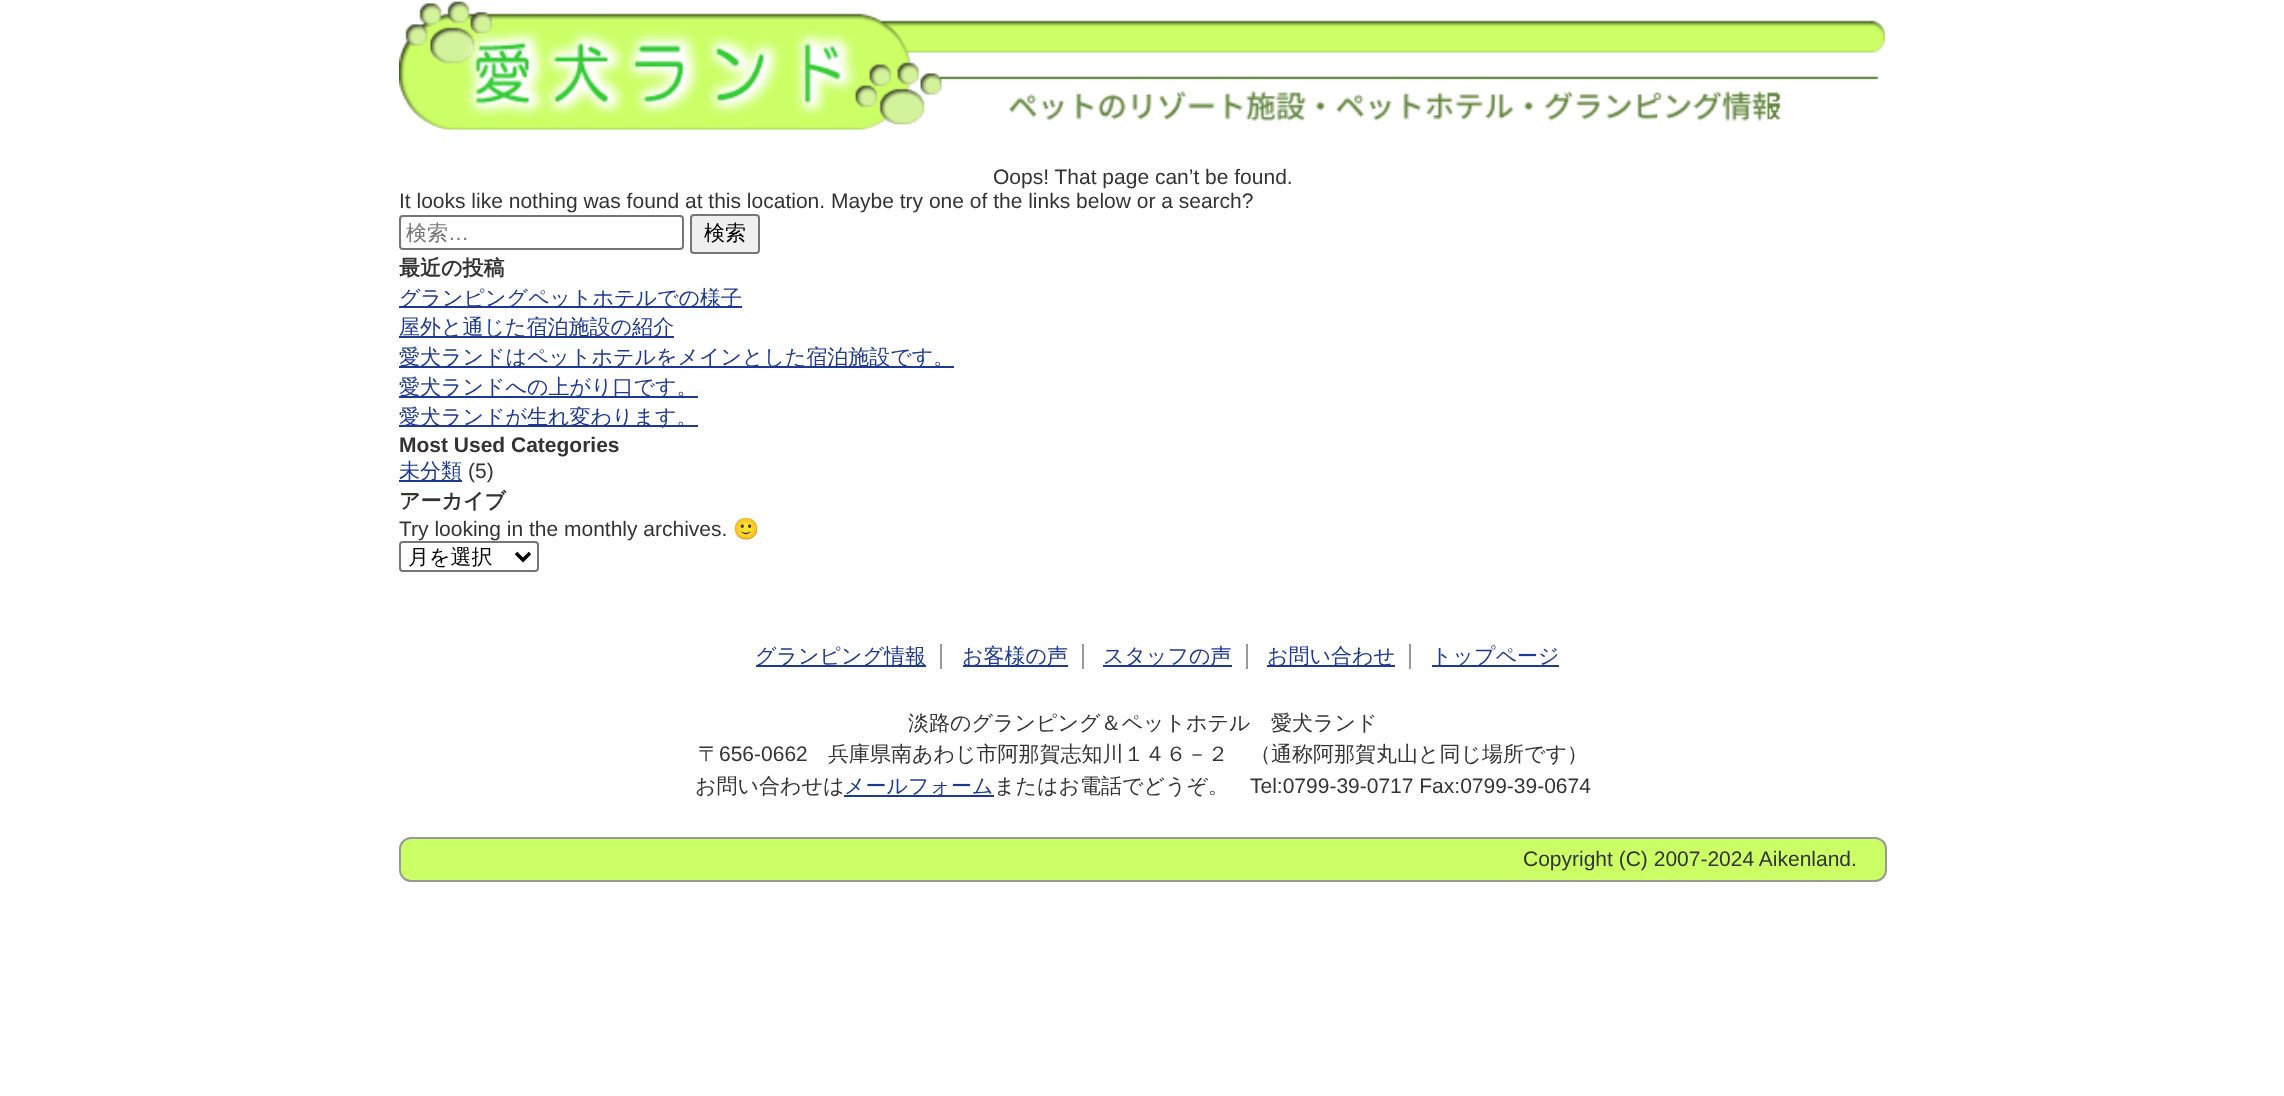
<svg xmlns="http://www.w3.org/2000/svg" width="2284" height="1096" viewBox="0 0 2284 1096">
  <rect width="100%" height="100%" fill="#ffffff"/>
  <image x="399" y="1" width="1486" height="129" href="img1.png"/>
  <text x="993" y="184" font-family="Liberation Sans" font-size="21" fill="#333333">Oops! That page can’t be found.</text>
  <text x="399" y="208" font-family="Liberation Sans" font-size="21" fill="#333333">It looks like nothing was found at this location. Maybe try one of the links below or a search?</text>
  <rect x="400" y="216" width="283" height="33" rx="3" fill="none" stroke="#767676" stroke-width="2"/>
  <text x="406" y="240" font-family="WenQuanYi Zen Hei" font-size="21" font-weight="500" fill="#757575">検索</text>
  <text x="448" y="240" font-family="Liberation Sans" font-size="21" fill="#757575">…</text>
  <rect x="691" y="215" width="68" height="38" rx="3" fill="#efefef" stroke="#767676" stroke-width="2"/>
  <text x="704" y="240" font-family="WenQuanYi Zen Hei" font-size="21" font-weight="500" fill="#000000">検索</text>
  <text x="399" y="275" font-family="WenQuanYi Zen Hei" font-size="21" font-weight="bold" fill="#333333">最近の投稿</text>
  <rect x="399" y="306" width="343" height="2" fill="#1d3994"/>
  <text x="399" y="305" font-family="WenQuanYi Zen Hei" font-size="21" font-weight="500" fill="#1d3994">グランピングペットホテルでの様子</text>
  <rect x="399" y="336" width="275" height="2" fill="#1d3994"/>
  <text x="399" y="334" font-family="WenQuanYi Zen Hei" font-size="21" font-weight="500" fill="#1d3994">屋外と通じた宿泊施設の紹介</text>
  <rect x="399" y="366" width="555" height="2" fill="#1d3994"/>
  <text x="399" y="364" font-family="WenQuanYi Zen Hei" font-size="21" font-weight="500" fill="#1d3994">愛犬ランドはペットホテルをメインとした宿泊施設です。</text>
  <rect x="399" y="396" width="299" height="2" fill="#1d3994"/>
  <text x="399" y="394" font-family="WenQuanYi Zen Hei" font-size="21" font-weight="500" fill="#1d3994">愛犬ランドへの上がり口です。</text>
  <rect x="399" y="425" width="299" height="2" fill="#1d3994"/>
  <text x="399" y="424" font-family="WenQuanYi Zen Hei" font-size="21" font-weight="500" fill="#1d3994">愛犬ランドが生れ変わります。</text>
  <text x="399" y="452" font-family="Liberation Sans" font-size="21" font-weight="bold" fill="#333333">Most Used Categories</text>
  <rect x="399" y="480" width="63" height="2" fill="#1d3994"/>
  <text x="399" y="478" font-family="WenQuanYi Zen Hei" font-size="21" font-weight="500" fill="#1d3994">未分類</text>
  <text x="468" y="478" font-family="Liberation Sans" font-size="21" fill="#333333">(5)</text>
  <text x="399" y="508" font-family="WenQuanYi Zen Hei" font-size="21" font-weight="bold" fill="#333333">アーカイブ</text>
  <text x="399" y="536" font-family="Liberation Sans" font-size="21" fill="#333333">Try looking in the monthly archives.</text>
  <text x="733" y="536" font-family="Noto Color Emoji" font-size="21" fill="#333333">🙂</text>
  <rect x="400" y="542" width="138" height="29" rx="3" fill="none" stroke="#767676" stroke-width="2"/>
  <path d="M516 553L523 560L530 553" fill="none" stroke="#000000" stroke-width="3.5"/>
  <text x="408" y="564" font-family="WenQuanYi Zen Hei" font-size="21" font-weight="500" fill="#000000">月を選択</text>
  <rect x="756" y="665" width="170" height="2" fill="#1d3994"/>
  <text x="755" y="663" font-family="WenQuanYi Zen Hei" font-size="21" font-weight="500" fill="#1d3994">グランピング情報</text>
  <rect x="940" y="644" width="2" height="25" fill="#999999"/>
  <rect x="963" y="665" width="105" height="2" fill="#1d3994"/>
  <text x="962" y="663" font-family="WenQuanYi Zen Hei" font-size="21" font-weight="500" fill="#1d3994">お客様の声</text>
  <rect x="1082" y="644" width="2" height="25" fill="#999999"/>
  <rect x="1103" y="665" width="129" height="2" fill="#1d3994"/>
  <text x="1103" y="663" font-family="WenQuanYi Zen Hei" font-size="21" font-weight="500" fill="#1d3994">スタッフの声</text>
  <rect x="1246" y="644" width="2" height="25" fill="#999999"/>
  <rect x="1267" y="665" width="128" height="2" fill="#1d3994"/>
  <text x="1267" y="663" font-family="WenQuanYi Zen Hei" font-size="21" font-weight="500" fill="#1d3994">お問い合わせ</text>
  <rect x="1409" y="644" width="2" height="25" fill="#999999"/>
  <rect x="1432" y="665" width="127" height="2" fill="#1d3994"/>
  <text x="1431" y="663" font-family="WenQuanYi Zen Hei" font-size="21" font-weight="500" fill="#1d3994">トップページ</text>
  <text x="908" y="730" font-family="WenQuanYi Zen Hei" font-size="21" font-weight="500" fill="#333333">淡路のグランピング＆ペットホテル</text>
  <text x="1271" y="730" font-family="WenQuanYi Zen Hei" font-size="21" font-weight="500" fill="#333333">愛犬ランド</text>
  <text x="698" y="761" font-family="WenQuanYi Zen Hei" font-size="21" font-weight="500" fill="#333333">〒</text>
  <text x="719" y="761" font-family="Liberation Sans" font-size="21" fill="#333333">656-0662</text>
  <text x="828" y="761" font-family="WenQuanYi Zen Hei" font-size="21" font-weight="500" fill="#333333">兵庫県南あわじ市阿那賀志知川１４６－２</text>
  <text x="1250" y="761" font-family="WenQuanYi Zen Hei" font-size="21" font-weight="500" fill="#333333">（通称阿那賀丸山と同じ場所です）</text>
  <text x="695" y="793" font-family="WenQuanYi Zen Hei" font-size="21" font-weight="500" fill="#333333">お問い合わせは</text>
  <rect x="844" y="795" width="150" height="2" fill="#1d3994"/>
  <text x="844" y="793" font-family="WenQuanYi Zen Hei" font-size="21" font-weight="500" fill="#1d3994">メールフォーム</text>
  <text x="994" y="793" font-family="WenQuanYi Zen Hei" font-size="21" font-weight="500" fill="#333333">またはお電話でどうぞ。</text>
  <text x="1250" y="793" font-family="Liberation Sans" font-size="21" fill="#333333">Tel:0799-39-0717 Fax:0799-39-0674</text>
  <rect x="400" y="838" width="1486" height="43" rx="11" fill="#ccff66" stroke="#999999" stroke-width="2"/>
  <text x="1523" y="866" font-family="Liberation Sans" font-size="21" fill="#333333">Copyright (C) 2007-2024 Aikenland.</text>
</svg>
